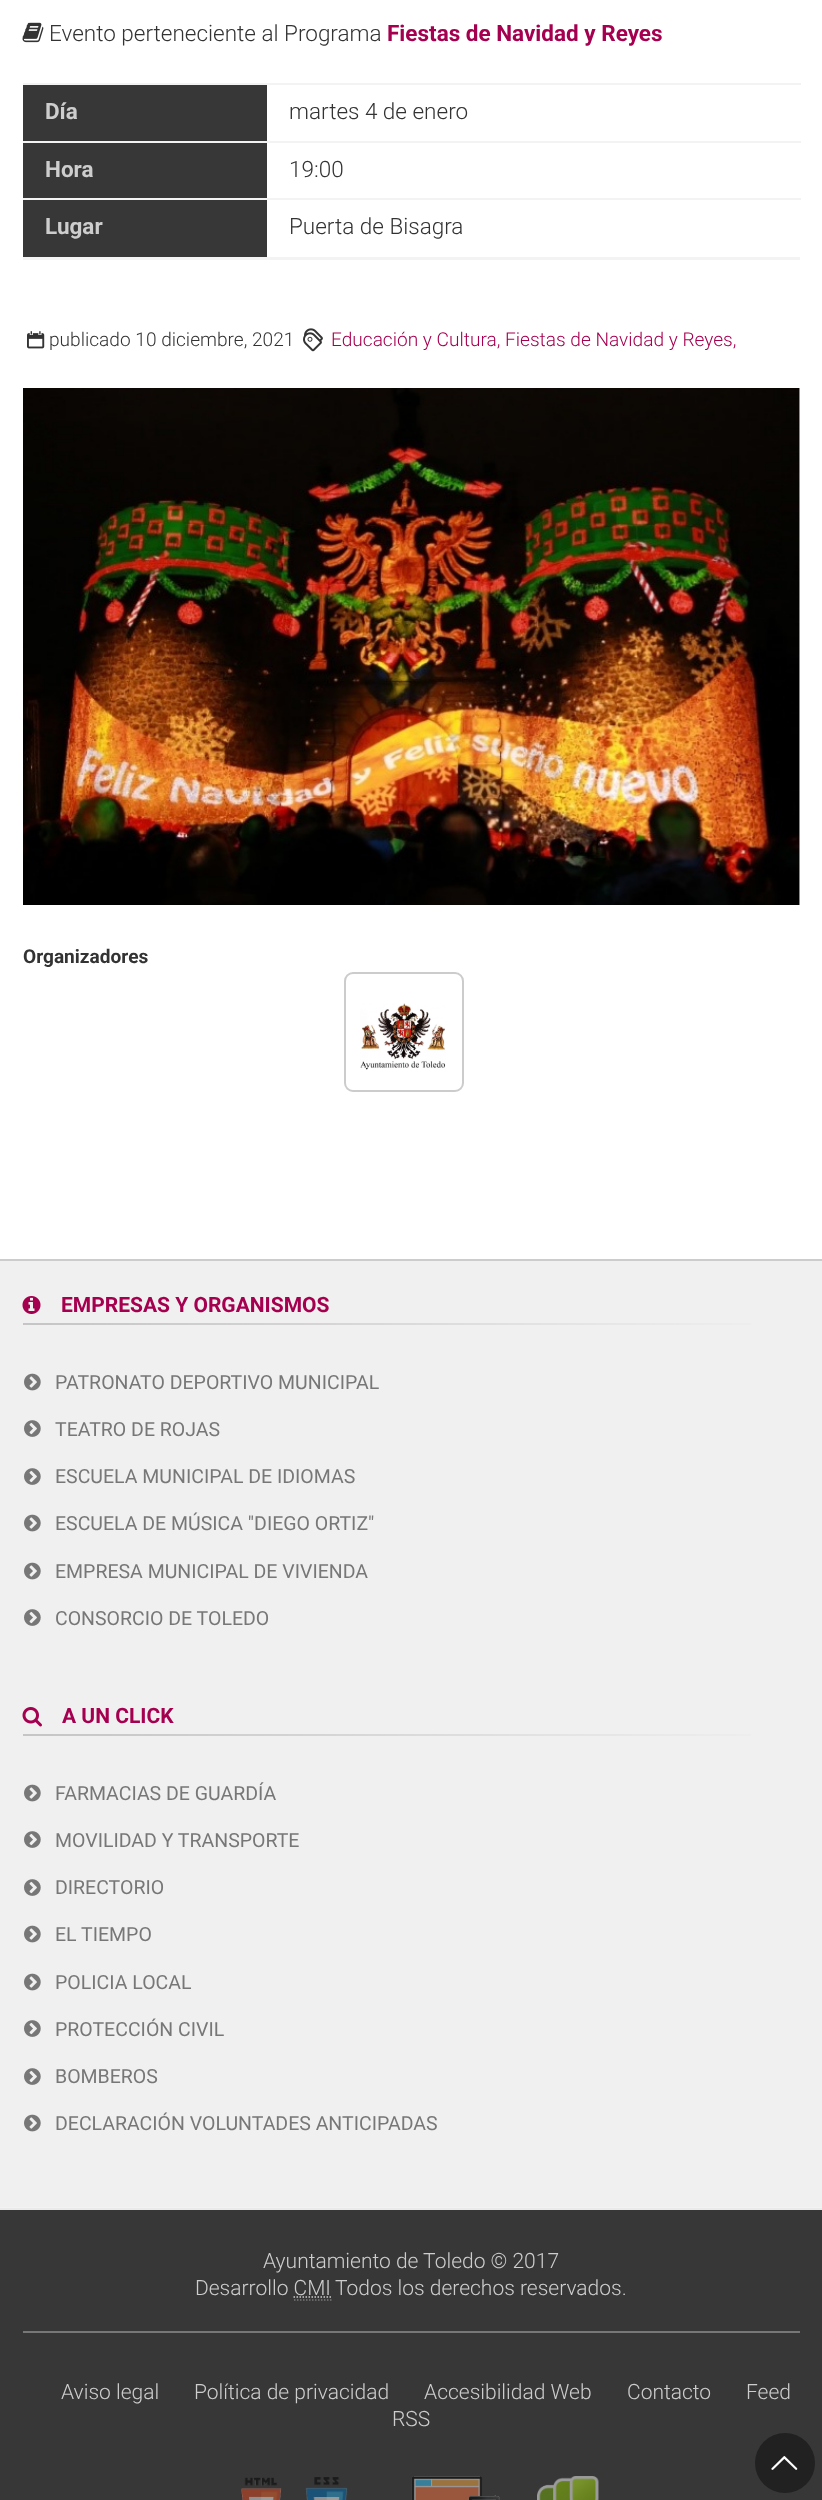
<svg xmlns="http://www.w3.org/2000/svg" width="822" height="2500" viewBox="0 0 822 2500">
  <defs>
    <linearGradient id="g1" gradientUnits="userSpaceOnUse" x1="23" y1="1324" x2="800" y2="1324"><stop offset="0" stop-color="#c5c5c5"/><stop offset="0.35" stop-color="#d3d3d3"/><stop offset="0.7" stop-color="#e4e4e4"/><stop offset="1" stop-color="#f0f0f0"/></linearGradient>
    <linearGradient id="g2" gradientUnits="userSpaceOnUse" x1="23" y1="1735" x2="800" y2="1735"><stop offset="0" stop-color="#c5c5c5"/><stop offset="0.35" stop-color="#d3d3d3"/><stop offset="0.7" stop-color="#e4e4e4"/><stop offset="1" stop-color="#f0f0f0"/></linearGradient>
  </defs>
  <rect width="100%" height="100%" fill="#ffffff"/>
  <image x="22" y="22" width="22" height="21" href="img1.png"/>
  <text x="49" y="41" font-family="Roboto" font-size="22.5" font-weight="300" fill="#333333">Evento perteneciente al Programa</text>
  <text x="387" y="41" font-family="Roboto" font-size="22.5" font-weight="bold" fill="#a50050">Fiestas de Navidad y Reyes</text>
  <rect x="23" y="257" width="777" height="3" fill="#f3f3f3"/>
  <rect x="23" y="85" width="244" height="56" fill="#373737"/>
  <text x="45" y="119" font-family="Roboto" font-size="22.5" font-weight="bold" fill="#cdcdcd">Día</text>
  <rect x="23" y="83" width="778" height="2" fill="#f3f3f3"/>
  <text x="289" y="119" font-family="Roboto" font-size="22.5" font-weight="300" fill="#333333">martes 4 de enero</text>
  <rect x="23" y="143" width="244" height="55" fill="#373737"/>
  <text x="45" y="177" font-family="Roboto" font-size="22.5" font-weight="bold" fill="#cdcdcd">Hora</text>
  <rect x="23" y="141" width="778" height="2" fill="#f3f3f3"/>
  <text x="289" y="177" font-family="Roboto" font-size="22.5" font-weight="300" fill="#333333">19:00</text>
  <rect x="23" y="200" width="244" height="57" fill="#373737"/>
  <text x="45" y="234" font-family="Roboto" font-size="22.5" font-weight="bold" fill="#cdcdcd">Lugar</text>
  <rect x="23" y="198" width="778" height="2" fill="#f3f3f3"/>
  <text x="289" y="234" font-family="Roboto" font-size="22.5" font-weight="300" fill="#333333">Puerta de Bisagra</text>
  <image x="27" y="331" width="18" height="18" href="img2.png"/>
  <text x="49" y="346" font-family="Roboto" font-size="19.1" font-weight="300" fill="#333333">publicado 10 diciembre, 2021</text>
  <image x="303" y="328" width="20" height="24" href="img3.png"/>
  <text x="331" y="346" font-family="Roboto" font-size="19.1" font-weight="300" fill="#a50050">Educación y Cultura, Fiestas de Navidad y Reyes,</text>
  <image x="23" y="388" width="777" height="517" href="img4.png"/>
  <text x="23" y="963" font-family="Roboto" font-size="19.1" font-weight="bold" fill="#333333">Organizadores</text>
  <rect x="345" y="973" width="118" height="118" rx="8" fill="none" stroke="#cccccc" stroke-width="2"/>
  <image x="360" y="1003" width="86" height="67" href="img5.png"/>
  <rect x="0" y="1261" width="822" height="946" fill="#f0f0f0"/>
  <rect x="0" y="1259" width="822" height="2" fill="#cccccc"/>
  <rect x="0" y="2207" width="822" height="1" fill="#f3f3f3"/>
  <image x="22" y="1296" width="19" height="18" href="img6.png"/>
  <text x="61" y="1312" font-family="Roboto" font-size="21" font-weight="bold" fill="#a50050">EMPRESAS Y ORGANISMOS</text>
  <rect x="23" y="1323" width="728" height="2" fill="url(#g1)"/>
  <image x="24" y="1373" width="17" height="18" href="img7.png"/>
  <text x="55" y="1389" font-family="Roboto" font-size="19.5" fill="#777777">PATRONATO DEPORTIVO MUNICIPAL</text>
  <image x="24" y="1420" width="17" height="17" href="img8.png"/>
  <text x="55" y="1436" font-family="Roboto" font-size="19.5" fill="#777777">TEATRO DE ROJAS</text>
  <image x="24" y="1468" width="17" height="17" href="img8.png"/>
  <text x="55" y="1483" font-family="Roboto" font-size="19.5" fill="#777777">ESCUELA MUNICIPAL DE IDIOMAS</text>
  <image x="24" y="1514" width="17" height="18" href="img7.png"/>
  <text x="55" y="1530" font-family="Roboto" font-size="19.5" fill="#777777">ESCUELA DE MÚSICA "DIEGO ORTIZ"</text>
  <image x="24" y="1562" width="17" height="18" href="img7.png"/>
  <text x="55" y="1578" font-family="Roboto" font-size="19.5" fill="#777777">EMPRESA MUNICIPAL DE VIVIENDA</text>
  <image x="24" y="1609" width="17" height="17" href="img8.png"/>
  <text x="55" y="1625" font-family="Roboto" font-size="19.5" fill="#777777">CONSORCIO DE TOLEDO</text>
  <image x="22" y="1707" width="20" height="20" href="img9.png"/>
  <text x="62" y="1723" font-family="Roboto" font-size="21" font-weight="bold" fill="#a50050">A UN CLICK</text>
  <rect x="23" y="1734" width="728" height="2" fill="url(#g2)"/>
  <image x="24" y="1784" width="17" height="18" href="img7.png"/>
  <text x="55" y="1800" font-family="Roboto" font-size="19.5" fill="#777777">FARMACIAS DE GUARDÍA</text>
  <image x="24" y="1831" width="17" height="17" href="img8.png"/>
  <text x="55" y="1847" font-family="Roboto" font-size="19.5" fill="#777777">MOVILIDAD Y TRANSPORTE</text>
  <image x="24" y="1879" width="17" height="17" href="img8.png"/>
  <text x="55" y="1894" font-family="Roboto" font-size="19.5" fill="#777777">DIRECTORIO</text>
  <image x="24" y="1925" width="17" height="18" href="img7.png"/>
  <text x="55" y="1941" font-family="Roboto" font-size="19.5" fill="#777777">EL TIEMPO</text>
  <image x="24" y="1973" width="17" height="18" href="img7.png"/>
  <text x="55" y="1989" font-family="Roboto" font-size="19.5" fill="#777777">POLICIA LOCAL</text>
  <image x="24" y="2020" width="17" height="17" href="img8.png"/>
  <text x="55" y="2036" font-family="Roboto" font-size="19.5" fill="#777777">PROTECCIÓN CIVIL</text>
  <image x="24" y="2068" width="17" height="17" href="img8.png"/>
  <text x="55" y="2083" font-family="Roboto" font-size="19.5" fill="#777777">BOMBEROS</text>
  <image x="24" y="2114" width="17" height="18" href="img7.png"/>
  <text x="55" y="2130" font-family="Roboto" font-size="19.5" fill="#777777">DECLARACIÓN VOLUNTADES ANTICIPADAS</text>
  <rect x="0" y="2210" width="822" height="290" fill="#373737"/>
  <rect x="0" y="2208" width="822" height="2" fill="#eaeaea"/>
  <text x="263" y="2268" font-family="Roboto" font-size="21" font-weight="300" fill="#cdcdcd">Ayuntamiento de Toledo © 2017</text>
  <text x="195" y="2295" font-family="Roboto" font-size="21" font-weight="300" fill="#cdcdcd">Desarrollo CMI</text>
  <text x="335" y="2295" font-family="Roboto" font-size="21" font-weight="300" fill="#cdcdcd">Todos los derechos reservados.</text>
  <path d="M293.5 2297H331" fill="none" stroke="#cccccc" stroke-width="1.5" stroke-dasharray="1.5 1.5"/>
  <path d="M294 2300H331.5" fill="none" stroke="#777777" stroke-width="1.5" stroke-dasharray="1.5 1.5"/>
  <rect x="23" y="2331" width="777" height="2" fill="#777777"/>
  <text x="61" y="2399" font-family="Roboto" font-size="21" font-weight="300" fill="#cdcdcd">Aviso legal</text>
  <text x="194" y="2399" font-family="Roboto" font-size="21" font-weight="300" fill="#cdcdcd">Política de privacidad</text>
  <text x="424" y="2399" font-family="Roboto" font-size="21" font-weight="300" fill="#cdcdcd">Accesibilidad Web</text>
  <text x="627" y="2399" font-family="Roboto" font-size="21" font-weight="300" fill="#cdcdcd">Contacto</text>
  <text x="746" y="2399" font-family="Roboto" font-size="21" font-weight="300" fill="#cdcdcd">Feed</text>
  <text x="392" y="2426" font-family="Roboto" font-size="21" font-weight="300" fill="#cdcdcd">RSS</text>
  <image x="241" y="2477" width="41" height="23" href="img10.png"/>
  <image x="305" y="2477" width="43" height="23" href="img11.png"/>
  <image x="411" y="2476" width="89" height="24" href="img12.png"/>
  <image x="537" y="2476" width="62" height="24" href="img13.png"/>
  <circle cx="785" cy="2463" r="30" fill="#212121"/>
  <image x="771" y="2456" width="27" height="14" href="img14.png"/>
</svg>
